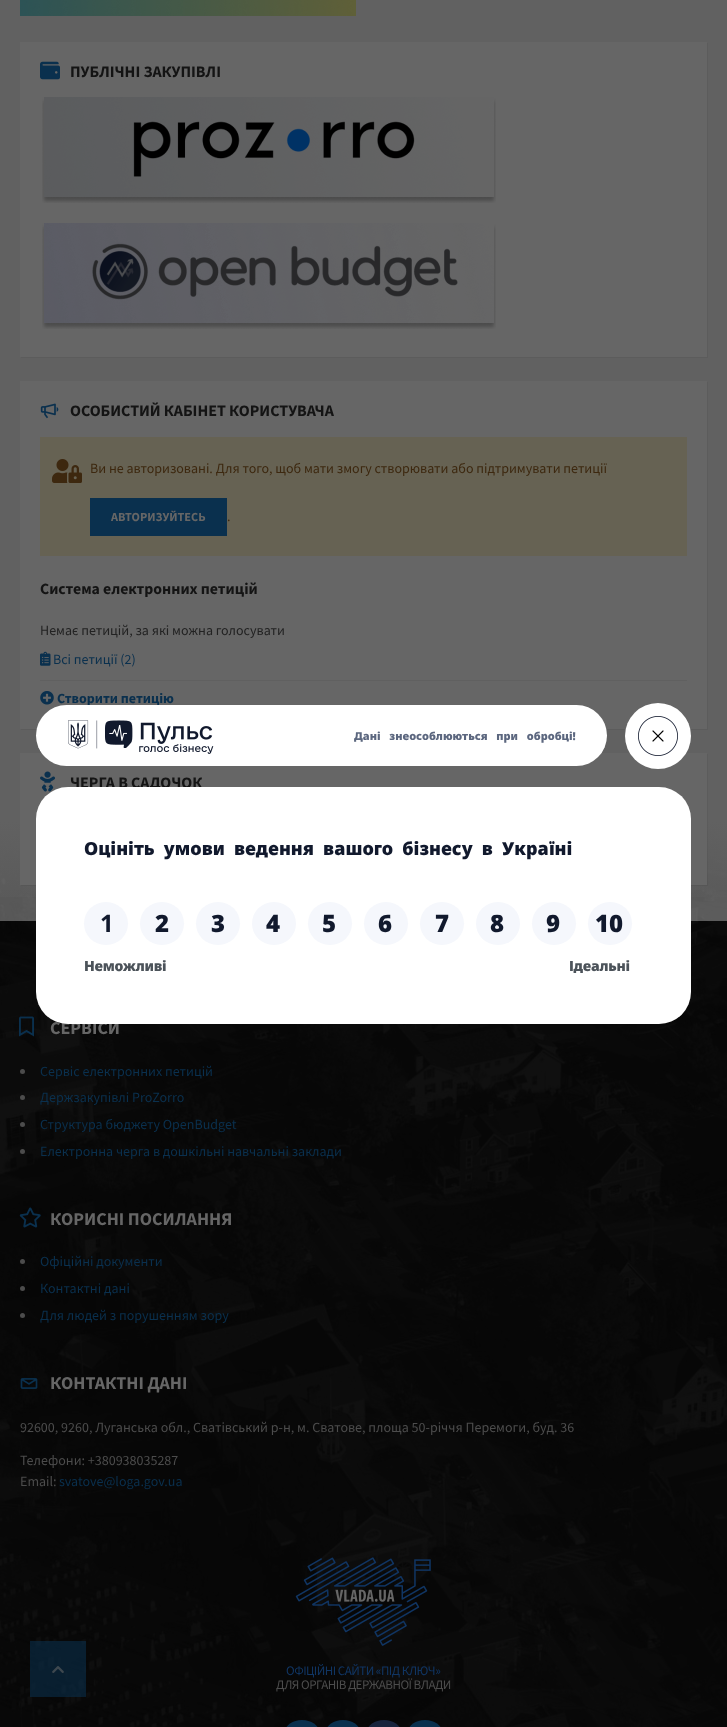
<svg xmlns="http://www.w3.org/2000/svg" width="727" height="1727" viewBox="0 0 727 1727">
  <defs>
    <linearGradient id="g1" gradientUnits="userSpaceOnUse" x1="364" y1="821" x2="364" y2="921"><stop offset="0" stop-color="#616161"/><stop offset="1" stop-color="#616161" stop-opacity="0"/></linearGradient>
  </defs>
  <rect width="100%" height="100%" fill="#616161"/>
  <image x="20" y="0" width="336" height="16" href="img1.png"/>
  <path d="M21 357V358H708V43H707V357Z" fill="#5c5c5c"/>
  <rect x="20" y="42" width="687" height="315" fill="#666666"/>
  <image x="40" y="61" width="20" height="19" href="img2.png"/>
  <text x="70" y="77" font-family="Source Sans Pro" font-size="16" font-weight="bold" fill="#141414">ПУБЛІЧНІ ЗАКУПІВЛІ</text>
  <image x="42" y="97" width="454" height="106" href="img3.png"/>
  <image x="42" y="223" width="454" height="106" href="img4.png"/>
  <path d="M21 729V730H708V382H707V729Z" fill="#5c5c5c"/>
  <rect x="20" y="381" width="687" height="348" fill="#666666"/>
  <image x="40" y="403" width="19" height="16" href="img5.png"/>
  <text x="70" y="416" font-family="Source Sans Pro" font-size="16" font-weight="bold" fill="#141414">ОСОБИСТИЙ КАБІНЕТ КОРИСТУВАЧА</text>
  <rect x="40" y="437" width="647" height="119" fill="#666253"/>
  <image x="52" y="459" width="30" height="24" href="img6.png"/>
  <text x="90" y="473" font-family="Source Sans Pro" font-size="14" fill="#3d280f">Ви не авторизовані. Для того, щоб мати змогу створювати або підтримувати петиції</text>
  <rect x="90" y="498" width="137" height="38" fill="#0a304e"/>
  <text x="111" y="521" font-family="Source Sans Pro" font-size="12.25" font-weight="bold" fill="#666666">АВТОРИЗУЙТЕСЬ</text>
  <text x="227" y="521" font-family="Source Sans Pro" font-size="14" fill="#3d280f">.</text>
  <text x="40" y="594" font-family="Source Sans Pro" font-size="15.75" font-weight="bold" fill="#141414">Система електронних петицій</text>
  <text x="40" y="635" font-family="Source Sans Pro" font-size="14" fill="#222222">Немає петицій, за які можна голосувати</text>
  <image x="40" y="651" width="11" height="15" href="img7.png"/>
  <text x="53" y="664" font-family="Source Sans Pro" font-size="14" fill="#0a304e">Всі петиції (2)</text>
  <rect x="40" y="680" width="647" height="1" fill="#606060"/>
  <image x="40" y="691" width="14" height="14" href="img8.png"/>
  <text x="57" y="703" font-family="Source Sans Pro" font-size="14" font-weight="bold" fill="#0a304e">Створити петицію</text>
  <image x="0" y="822" width="727" height="905" href="img12.png"/>
  <rect x="0" y="822" width="727" height="99" fill="#616161" fill-opacity="0.9"/>
  <rect x="0" y="822" width="727" height="75" fill="url(#g1)"/>
  <path d="M21 885V886H708V754H707V885Z" fill="#000000" fill-opacity="0.05"/>
  <rect x="20" y="753" width="687" height="132" fill="#666666"/>
  <image x="40" y="771" width="15" height="21" href="img9.png"/>
  <text x="70" y="788" font-family="Source Sans Pro" font-size="16" font-weight="bold" fill="#141414">ЧЕРГА В САДОЧОК</text>
  <rect x="36" y="705" width="571" height="61" rx="30.5" fill="#ffffff"/>
  <image x="68" y="720" width="146" height="34" href="img10.png"/>
  <text x="354" y="740" word-spacing="6" font-family="Noto Sans" font-size="11" font-weight="900" fill="#5c677f">Дані знеособлюються при обробці!</text>
  <circle cx="658" cy="736" r="33" fill="#ffffff"/>
  <image x="638" y="716" width="40" height="40" href="img11.png"/>
  <rect x="0" y="921" width="727" height="806" fill="#070707" fill-opacity="0.9"/>
  <text x="50" y="1034" font-family="Source Sans Pro" font-size="18" font-weight="bold" fill="#666666">СЕРВІСИ</text>
  <rect x="36" y="787" width="655" height="237" rx="32" fill="#ffffff"/>
  <text x="84" y="855" word-spacing="4.5" font-family="Noto Sans" font-size="18" font-weight="900" fill="#11192d">Оцініть умови ведення вашого бізнесу в Україні</text>
  <rect x="84" y="902" width="44" height="43" rx="21.5" fill="#f5f7fc"/>
  <text x="100" y="932" font-family="Noto Sans" font-size="24" font-weight="bold" fill="#11192d">1</text>
  <rect x="140" y="902" width="44" height="43" rx="21.5" fill="#f5f7fc"/>
  <text x="155" y="932" font-family="Noto Sans" font-size="24" font-weight="900" fill="#11192d">2</text>
  <rect x="196" y="902" width="44" height="43" rx="21.5" fill="#f5f7fc"/>
  <text x="211" y="932" font-family="Noto Sans" font-size="24" font-weight="900" fill="#11192d">3</text>
  <rect x="252" y="902" width="44" height="43" rx="21.5" fill="#f5f7fc"/>
  <text x="266" y="932" font-family="Noto Sans" font-size="24" font-weight="900" fill="#11192d">4</text>
  <rect x="308" y="902" width="44" height="43" rx="21.5" fill="#f5f7fc"/>
  <text x="322" y="932" font-family="Noto Sans" font-size="24" font-weight="900" fill="#11192d">5</text>
  <rect x="364" y="902" width="44" height="43" rx="21.5" fill="#f5f7fc"/>
  <text x="378" y="932" font-family="Noto Sans" font-size="24" font-weight="900" fill="#11192d">6</text>
  <rect x="420" y="902" width="44" height="43" rx="21.5" fill="#f5f7fc"/>
  <text x="435" y="932" font-family="Noto Sans" font-size="24" font-weight="900" fill="#11192d">7</text>
  <rect x="476" y="902" width="44" height="43" rx="21.5" fill="#f5f7fc"/>
  <text x="490" y="932" font-family="Noto Sans" font-size="24" font-weight="900" fill="#11192d">8</text>
  <rect x="532" y="902" width="44" height="43" rx="21.5" fill="#f5f7fc"/>
  <text x="546" y="932" font-family="Noto Sans" font-size="24" font-weight="900" fill="#11192d">9</text>
  <rect x="588" y="902" width="44" height="43" rx="21.5" fill="#f5f7fc"/>
  <text x="595" y="932" font-family="Noto Sans" font-size="24" font-weight="900" fill="#11192d">10</text>
  <text x="84" y="971" font-family="Noto Sans" font-size="14" font-weight="900" letter-spacing="-0.25" fill="#4c535a">Неможливі</text>
  <text x="569" y="971" font-family="Noto Sans" font-size="14" font-weight="900" letter-spacing="-0.25" fill="#4c535a">Ідеальні</text>
  <image x="19" y="1016" width="15" height="21" href="img13.png"/>
  <circle cx="22.5" cy="1071.5" r="2.5" fill="#4c4c4c"/>
  <text x="40" y="1076" font-family="Source Sans Pro" font-size="14" fill="#0a304e">Сервіс електронних петицій</text>
  <circle cx="22.5" cy="1097.5" r="2.5" fill="#4c4c4c"/>
  <text x="40" y="1102" font-family="Source Sans Pro" font-size="14" fill="#0a304e">Держзакупівлі ProZorro</text>
  <circle cx="22.5" cy="1124.5" r="2.5" fill="#4c4c4c"/>
  <text x="40" y="1129" font-family="Source Sans Pro" font-size="14" fill="#0a304e">Структура бюджету OpenBudget</text>
  <circle cx="22.5" cy="1151.5" r="2.5" fill="#4c4c4c"/>
  <text x="40" y="1156" font-family="Source Sans Pro" font-size="14" fill="#0a304e">Електронна черга в дошкільні навчальні заклади</text>
  <image x="19" y="1207" width="22" height="21" href="img14.png"/>
  <text x="50" y="1225" font-family="Source Sans Pro" font-size="18" font-weight="bold" fill="#666666">КОРИСНІ ПОСИЛАННЯ</text>
  <circle cx="22.5" cy="1261.5" r="2.5" fill="#4c4c4c"/>
  <text x="40" y="1266" font-family="Source Sans Pro" font-size="14" fill="#0a304e">Офіційні документи</text>
  <circle cx="22.5" cy="1288.5" r="2.5" fill="#4c4c4c"/>
  <text x="40" y="1293" font-family="Source Sans Pro" font-size="14" fill="#0a304e">Контактні дані</text>
  <circle cx="22.5" cy="1315.5" r="2.5" fill="#4c4c4c"/>
  <text x="40" y="1320" font-family="Source Sans Pro" font-size="14" fill="#0a304e">Для людей з порушенням зору</text>
  <image x="20" y="1378" width="18" height="11" href="img15.png"/>
  <text x="50" y="1389" font-family="Source Sans Pro" font-size="18" font-weight="bold" fill="#666666">КОНТАКТНІ ДАНІ</text>
  <text x="20" y="1432" font-family="Source Sans Pro" font-size="14" fill="#4c4c4c">92600, 9260, Луганська обл., Сватівський р-н, м. Сватове, площа 50-річчя Перемоги, буд. 36</text>
  <text x="20" y="1465" font-family="Source Sans Pro" font-size="14" fill="#4c4c4c">Телефони: +380938035287</text>
  <text x="20" y="1486" font-family="Source Sans Pro" font-size="14" fill="#4c4c4c">Email:</text>
  <text x="59" y="1486" font-family="Source Sans Pro" font-size="14" fill="#0a304e">svatove@loga.gov.ua</text>
  <image x="295" y="1557" width="136" height="89" href="img16.png"/>
  <text x="286" y="1675" font-family="Source Sans Pro" font-size="13" letter-spacing="-0.5" fill="#103563">ОФІЦІЙНІ САЙТИ «ПІД КЛЮЧ»</text>
  <text x="276" y="1689" font-family="Source Sans Pro" font-size="13" letter-spacing="-0.5" fill="#4c4c4c">ДЛЯ ОРГАНІВ ДЕРЖАВНОЇ ВЛАДИ</text>
  <rect x="285" y="1720" width="34" height="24" rx="17" fill="#0a304e"/>
  <rect x="326" y="1720" width="34" height="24" rx="17" fill="#0a304e"/>
  <rect x="367" y="1720" width="34" height="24" rx="17" fill="#18243d"/>
  <rect x="408" y="1720" width="34" height="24" rx="17" fill="#0a304e"/>
  <rect x="30" y="1641" width="56" height="56" fill="#0a304e" fill-opacity="0.58"/>
  <image x="52" y="1666" width="12" height="7" href="img17.png"/>
</svg>
